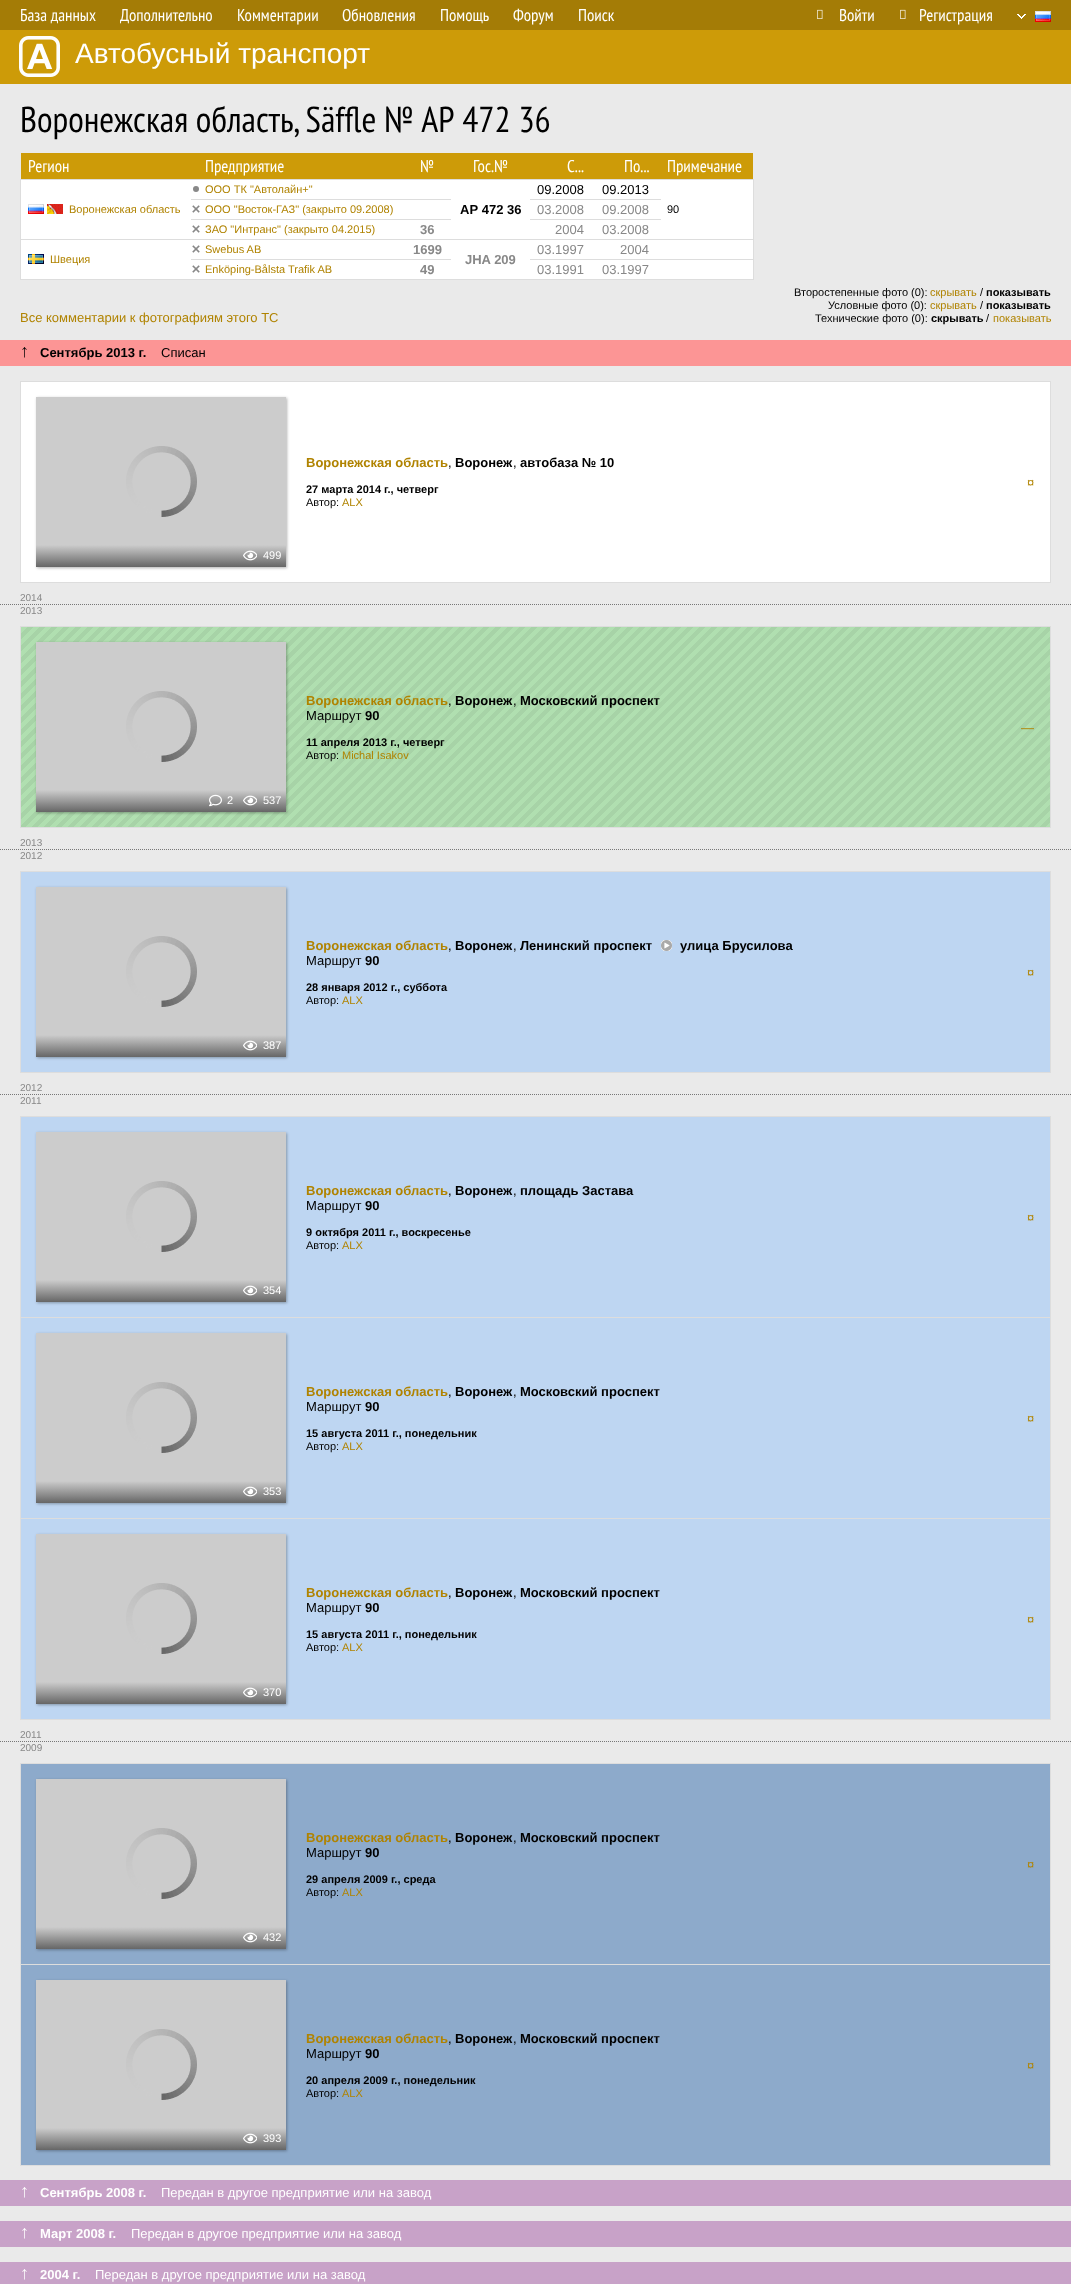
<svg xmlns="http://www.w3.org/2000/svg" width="1071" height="2284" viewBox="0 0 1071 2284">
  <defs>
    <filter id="blur1" x="-50%" y="-200%" width="200%" height="500%"><feGaussianBlur stdDeviation="1.5"/></filter>
    <linearGradient id="g1" gradientUnits="userSpaceOnUse" x1="161" y1="567" x2="161" y2="545"><stop offset="0" stop-color="#666666"/><stop offset="1" stop-color="#cccccc"/></linearGradient>
    <linearGradient id="g2" gradientUnits="userSpaceOnUse" x1="161" y1="812" x2="161" y2="790"><stop offset="0" stop-color="#666666"/><stop offset="1" stop-color="#cccccc"/></linearGradient>
    <linearGradient id="g3" gradientUnits="userSpaceOnUse" x1="161" y1="1057" x2="161" y2="1035"><stop offset="0" stop-color="#666666"/><stop offset="1" stop-color="#cccccc"/></linearGradient>
    <linearGradient id="g4" gradientUnits="userSpaceOnUse" x1="161" y1="1302" x2="161" y2="1280"><stop offset="0" stop-color="#666666"/><stop offset="1" stop-color="#cccccc"/></linearGradient>
    <linearGradient id="g5" gradientUnits="userSpaceOnUse" x1="161" y1="1503" x2="161" y2="1481"><stop offset="0" stop-color="#666666"/><stop offset="1" stop-color="#cccccc"/></linearGradient>
    <linearGradient id="g6" gradientUnits="userSpaceOnUse" x1="161" y1="1704" x2="161" y2="1682"><stop offset="0" stop-color="#666666"/><stop offset="1" stop-color="#cccccc"/></linearGradient>
    <linearGradient id="g7" gradientUnits="userSpaceOnUse" x1="161" y1="1949" x2="161" y2="1927"><stop offset="0" stop-color="#666666"/><stop offset="1" stop-color="#cccccc"/></linearGradient>
    <linearGradient id="g8" gradientUnits="userSpaceOnUse" x1="161" y1="2150" x2="161" y2="2128"><stop offset="0" stop-color="#666666"/><stop offset="1" stop-color="#cccccc"/></linearGradient>
  </defs>
  <rect width="100%" height="100%" fill="#a47c06"/>
  <text x="20" y="21" font-family="PT Sans Narrow" font-size="17" fill="#ffffff">База данных</text>
  <text x="120" y="21" font-family="PT Sans Narrow" font-size="17" fill="#ffffff">Дополнительно</text>
  <text x="237" y="21" font-family="PT Sans Narrow" font-size="17" fill="#ffffff">Комментарии</text>
  <text x="342" y="21" font-family="PT Sans Narrow" font-size="17" fill="#ffffff">Обновления</text>
  <text x="440" y="21" font-family="PT Sans Narrow" font-size="17" fill="#ffffff">Помощь</text>
  <text x="513" y="21" font-family="PT Sans Narrow" font-size="17" fill="#ffffff">Форум</text>
  <text x="578" y="21" font-family="PT Sans Narrow" font-size="17" fill="#ffffff">Поиск</text>
  <image x="817" y="9" width="6" height="10" href="img1.png"/>
  <text x="839" y="21" font-family="PT Sans Narrow" font-size="17" fill="#ffffff">Войти</text>
  <image x="900" y="9" width="6" height="10" href="img1.png"/>
  <text x="919" y="21" font-family="PT Sans Narrow" font-size="17" fill="#ffffff">Регистрация</text>
  <image x="1017" y="14" width="9" height="5" href="img2.png"/>
  <image x="1035" y="11" width="16" height="11" href="img3.png"/>
  <rect x="0" y="30" width="1071" height="54" fill="#cd9b08"/>
  <image x="19" y="36" width="41" height="41" href="img4.png"/>
  <text x="75" y="63" font-family="Liberation Sans" font-size="28" fill="#ffffff">Автобусный транспорт</text>
  <rect x="0" y="84" width="1071" height="2178" fill="#eaeaea"/>
  <text x="20" y="132" font-family="PT Sans Narrow" font-size="36" fill="#000000">Воронежская область, Säffle № АР 472 36</text>
  <rect x="21" y="153" width="732" height="26" fill="#cd9b08"/>
  <text x="28" y="172" font-family="PT Sans Narrow" font-size="17" fill="#ffffff">Регион</text>
  <text x="205" y="172" font-family="PT Sans Narrow" font-size="17" fill="#ffffff">Предприятие</text>
  <text x="420" y="172" font-family="PT Sans Narrow" font-size="17" fill="#ffffff">№</text>
  <text x="473" y="172" font-family="PT Sans Narrow" font-size="17" fill="#ffffff">Гос.№</text>
  <text x="567" y="172" font-family="PT Sans Narrow" font-size="17" fill="#ffffff">С...</text>
  <text x="624" y="172" font-family="PT Sans Narrow" font-size="17" fill="#ffffff">По...</text>
  <text x="667" y="172" font-family="PT Sans Narrow" font-size="17" fill="#ffffff">Примечание</text>
  <rect x="21" y="180" width="732" height="99" fill="#ffffff"/>
  <rect x="20" y="179" width="734" height="1" fill="#dddddd"/>
  <rect x="753" y="179" width="1" height="101" fill="#dddddd"/>
  <rect x="20" y="279" width="734" height="1" fill="#dddddd"/>
  <rect x="20" y="179" width="1" height="101" fill="#dddddd"/>
  <circle cx="196" cy="189" r="3" fill="#888888"/>
  <text x="205" y="193" font-family="Liberation Sans" font-size="11" fill="#b08300">ООО ТК "Автолайн+"</text>
  <text x="537" y="194" font-family="Liberation Sans" font-size="13" fill="#000000">09.2008</text>
  <rect x="530" y="199" width="131" height="1" fill="#dddddd"/>
  <text x="602" y="194" font-family="Liberation Sans" font-size="13" fill="#000000">09.2013</text>
  <rect x="191" y="199" width="260" height="1" fill="#dddddd"/>
  <image x="28" y="204" width="16" height="10" href="img5.png"/>
  <image x="47" y="204" width="16" height="10" href="img6.png"/>
  <text x="69" y="213" font-family="Liberation Sans" font-size="11" fill="#b08300">Воронежская область</text>
  <text x="460" y="214" font-family="Liberation Sans" font-size="13" font-weight="bold" fill="#000000">АР 472 36</text>
  <text x="667" y="213" font-family="Liberation Sans" font-size="11" fill="#000000">90</text>
  <image x="192" y="205" width="8" height="8" href="img7.png"/>
  <text x="205" y="213" font-family="Liberation Sans" font-size="11" fill="#b08300">ООО "Восток-ГАЗ" (закрыто 09.2008)</text>
  <text x="537" y="214" font-family="Liberation Sans" font-size="13" fill="#888888">03.2008</text>
  <rect x="530" y="219" width="131" height="1" fill="#dddddd"/>
  <text x="602" y="214" font-family="Liberation Sans" font-size="13" fill="#888888">09.2008</text>
  <rect x="191" y="219" width="260" height="1" fill="#dddddd"/>
  <image x="192" y="225" width="8" height="8" href="img7.png"/>
  <text x="205" y="233" font-family="Liberation Sans" font-size="11" fill="#b08300">ЗАО "Интранс" (закрыто 04.2015)</text>
  <rect x="530" y="239" width="224" height="1" fill="#dddddd"/>
  <rect x="20" y="239" width="511" height="1" fill="#dddddd"/>
  <text x="420" y="234" font-family="Liberation Sans" font-size="13" font-weight="bold" fill="#888888">36</text>
  <text x="555" y="234" font-family="Liberation Sans" font-size="13" fill="#888888">2004</text>
  <text x="602" y="234" font-family="Liberation Sans" font-size="13" fill="#888888">03.2008</text>
  <image x="192" y="245" width="8" height="8" href="img7.png"/>
  <text x="205" y="253" font-family="Liberation Sans" font-size="11" fill="#b08300">Swebus AB</text>
  <rect x="191" y="259" width="260" height="1" fill="#dddddd"/>
  <text x="413" y="254" font-family="Liberation Sans" font-size="13" font-weight="bold" fill="#888888">1699</text>
  <text x="537" y="254" font-family="Liberation Sans" font-size="13" fill="#888888">03.1997</text>
  <text x="620" y="254" font-family="Liberation Sans" font-size="13" fill="#888888">2004</text>
  <image x="28" y="254" width="16" height="10" href="img8.png"/>
  <text x="50" y="263" font-family="Liberation Sans" font-size="11" fill="#b08300">Швеция</text>
  <text x="465" y="264" font-family="Liberation Sans" font-size="13" font-weight="bold" fill="#888888">JHA 209</text>
  <rect x="530" y="259" width="224" height="1" fill="#dddddd"/>
  <image x="192" y="265" width="8" height="8" href="img7.png"/>
  <text x="205" y="273" font-family="Liberation Sans" font-size="11" fill="#b08300">Enköping-Bålsta Trafik AB</text>
  <text x="420" y="274" font-family="Liberation Sans" font-size="13" font-weight="bold" fill="#888888">49</text>
  <text x="537" y="274" font-family="Liberation Sans" font-size="13" fill="#888888">03.1991</text>
  <text x="602" y="274" font-family="Liberation Sans" font-size="13" fill="#888888">03.1997</text>
  <text x="20" y="322" font-family="Liberation Sans" font-size="13" fill="#b08300">Все комментарии к фотографиям этого ТС</text>
  <text x="794" y="296" font-family="Liberation Sans" font-size="11" fill="#000000">Второстепенные фото (0):</text>
  <text x="930" y="296" font-family="Liberation Sans" font-size="11" fill="#b08300">скрывать</text>
  <text x="980" y="296" font-family="Liberation Sans" font-size="11" fill="#000000">/</text>
  <text x="986" y="296" font-family="Liberation Sans" font-size="11" font-weight="bold" fill="#000000">показывать</text>
  <text x="828" y="309" font-family="Liberation Sans" font-size="11" fill="#000000">Условные фото (0):</text>
  <text x="930" y="309" font-family="Liberation Sans" font-size="11" fill="#b08300">скрывать</text>
  <text x="980" y="309" font-family="Liberation Sans" font-size="11" fill="#000000">/</text>
  <text x="986" y="309" font-family="Liberation Sans" font-size="11" font-weight="bold" fill="#000000">показывать</text>
  <text x="815" y="322" font-family="Liberation Sans" font-size="11" fill="#000000">Технические фото (0):</text>
  <text x="931" y="322" font-family="Liberation Sans" font-size="11" font-weight="bold" fill="#000000">скрывать</text>
  <text x="986" y="322" font-family="Liberation Sans" font-size="11" fill="#000000">/</text>
  <text x="993" y="322" font-family="Liberation Sans" font-size="11" fill="#b08300">показывать</text>
  <rect x="0" y="340" width="1071" height="26" fill="#fc9595"/>
  <text x="20" y="357" font-family="Liberation Sans" font-size="18" fill="#000000">↑</text>
  <text x="40" y="357" font-family="Liberation Sans" font-size="13" font-weight="bold" fill="#000000">Сентябрь 2013 г.</text>
  <text x="161" y="357" font-family="Liberation Sans" font-size="13" fill="#000000">Списан</text>
  <rect x="20.5" y="381.5" width="1030" height="201" fill="#ffffff" stroke="#dddddd"/>
  <text x="306" y="467" font-family="Liberation Sans" font-size="13" font-weight="bold" fill="#b08300">Воронежская область</text>
  <text x="448" y="467" font-family="Liberation Sans" font-size="13" fill="#000000">,</text>
  <text x="455" y="467" font-family="Liberation Sans" font-size="13" font-weight="bold" fill="#000000">Воронеж</text>
  <text x="513" y="467" font-family="Liberation Sans" font-size="13" fill="#000000">,</text>
  <text x="520" y="467" font-family="Liberation Sans" font-size="13" font-weight="bold" fill="#000000">автобаза № 10</text>
  <text x="306" y="493" font-family="Liberation Sans" font-size="11" font-weight="bold" fill="#000000">27 марта 2014 г., четверг</text>
  <text x="306" y="506" font-family="Liberation Sans" font-size="11" fill="#000000">Автор:</text>
  <text x="342" y="506" font-family="Liberation Sans" font-size="11" fill="#b08300">ALX</text>
  <text x="1027" y="487" font-family="Liberation Sans" font-size="13" fill="#b08300">¤</text>
  <rect x="37" y="398" width="250" height="170" fill="#000000" fill-opacity="0.3" filter="url(#blur1)"/>
  <image x="36" y="397" width="250" height="148" href="img9.png"/>
  <rect x="36" y="545" width="250" height="22" fill="url(#g1)"/>
  <image x="243" y="550" width="14" height="11" href="img10.png"/>
  <text x="263" y="559" font-family="Liberation Sans" font-size="11" fill="#ffffff">499</text>
  <path d="M0 604.5H1071" fill="none" stroke="#777777" stroke-dasharray="1 1"/>
  <text x="20" y="601" font-family="Liberation Sans" font-size="10" fill="#888888">2014</text>
  <text x="20" y="614" font-family="Liberation Sans" font-size="10" fill="#888888">2013</text>
  <rect x="21" y="627" width="1029" height="200" fill="#b0dfb0"/>
  <image x="21" y="627" width="1029" height="200" href="img11.png"/>
  <rect x="20.5" y="626.5" width="1030" height="201" fill="none" stroke="#dddddd"/>
  <text x="306" y="705" font-family="Liberation Sans" font-size="13" font-weight="bold" fill="#b08300">Воронежская область</text>
  <text x="448" y="705" font-family="Liberation Sans" font-size="13" fill="#000000">,</text>
  <text x="455" y="705" font-family="Liberation Sans" font-size="13" font-weight="bold" fill="#000000">Воронеж</text>
  <text x="513" y="705" font-family="Liberation Sans" font-size="13" fill="#000000">,</text>
  <text x="520" y="705" font-family="Liberation Sans" font-size="13" font-weight="bold" fill="#000000">Московский проспект</text>
  <text x="306" y="720" font-family="Liberation Sans" font-size="13" fill="#000000">Маршрут</text>
  <text x="365" y="720" font-family="Liberation Sans" font-size="13" font-weight="bold" fill="#000000">90</text>
  <text x="306" y="746" font-family="Liberation Sans" font-size="11" font-weight="bold" fill="#000000">11 апреля 2013 г., четверг</text>
  <text x="306" y="759" font-family="Liberation Sans" font-size="11" fill="#000000">Автор:</text>
  <text x="342" y="759" font-family="Liberation Sans" font-size="11" fill="#b08300">Michal Isakov</text>
  <text x="1021" y="732" font-family="Liberation Sans" font-size="13" fill="#b08300">—</text>
  <rect x="37" y="643" width="250" height="170" fill="#000000" fill-opacity="0.3" filter="url(#blur1)"/>
  <image x="36" y="642" width="250" height="148" href="img9.png"/>
  <rect x="36" y="790" width="250" height="22" fill="url(#g2)"/>
  <image x="209" y="794" width="13" height="13" href="img12.png"/>
  <text x="227" y="804" font-family="Liberation Sans" font-size="11" fill="#ffffff">2</text>
  <image x="243" y="795" width="14" height="11" href="img10.png"/>
  <text x="263" y="804" font-family="Liberation Sans" font-size="11" fill="#ffffff">537</text>
  <path d="M0 849.5H1071" fill="none" stroke="#777777" stroke-dasharray="1 1"/>
  <text x="20" y="846" font-family="Liberation Sans" font-size="10" fill="#888888">2013</text>
  <text x="20" y="859" font-family="Liberation Sans" font-size="10" fill="#888888">2012</text>
  <rect x="20.5" y="871.5" width="1030" height="201" fill="#bed6f2" stroke="#dddddd"/>
  <text x="306" y="950" font-family="Liberation Sans" font-size="13" font-weight="bold" fill="#b08300">Воронежская область</text>
  <text x="448" y="950" font-family="Liberation Sans" font-size="13" fill="#000000">,</text>
  <text x="455" y="950" font-family="Liberation Sans" font-size="13" font-weight="bold" fill="#000000">Воронеж</text>
  <text x="513" y="950" font-family="Liberation Sans" font-size="13" fill="#000000">,</text>
  <text x="520" y="950" font-family="Liberation Sans" font-size="13" font-weight="bold" fill="#000000">Ленинский проспект</text>
  <image x="661" y="940" width="11" height="11" href="img13.png"/>
  <text x="680" y="950" font-family="Liberation Sans" font-size="13" font-weight="bold" fill="#000000">улица Брусилова</text>
  <text x="306" y="965" font-family="Liberation Sans" font-size="13" fill="#000000">Маршрут</text>
  <text x="365" y="965" font-family="Liberation Sans" font-size="13" font-weight="bold" fill="#000000">90</text>
  <text x="306" y="991" font-family="Liberation Sans" font-size="11" font-weight="bold" fill="#000000">28 января 2012 г., суббота</text>
  <text x="306" y="1004" font-family="Liberation Sans" font-size="11" fill="#000000">Автор:</text>
  <text x="342" y="1004" font-family="Liberation Sans" font-size="11" fill="#b08300">ALX</text>
  <text x="1027" y="977" font-family="Liberation Sans" font-size="13" fill="#b08300">¤</text>
  <rect x="37" y="888" width="250" height="170" fill="#000000" fill-opacity="0.3" filter="url(#blur1)"/>
  <image x="36" y="887" width="250" height="148" href="img9.png"/>
  <rect x="36" y="1035" width="250" height="22" fill="url(#g3)"/>
  <image x="243" y="1040" width="14" height="11" href="img10.png"/>
  <text x="263" y="1049" font-family="Liberation Sans" font-size="11" fill="#ffffff">387</text>
  <path d="M0 1094.5H1071" fill="none" stroke="#777777" stroke-dasharray="1 1"/>
  <text x="20" y="1091" font-family="Liberation Sans" font-size="10" fill="#888888">2012</text>
  <text x="20" y="1104" font-family="Liberation Sans" font-size="10" fill="#888888">2011</text>
  <rect x="20.5" y="1116.5" width="1030" height="201" fill="#bed6f2" stroke="#dddddd"/>
  <text x="306" y="1195" font-family="Liberation Sans" font-size="13" font-weight="bold" fill="#b08300">Воронежская область</text>
  <text x="448" y="1195" font-family="Liberation Sans" font-size="13" fill="#000000">,</text>
  <text x="455" y="1195" font-family="Liberation Sans" font-size="13" font-weight="bold" fill="#000000">Воронеж</text>
  <text x="513" y="1195" font-family="Liberation Sans" font-size="13" fill="#000000">,</text>
  <text x="520" y="1195" font-family="Liberation Sans" font-size="13" font-weight="bold" fill="#000000">площадь Застава</text>
  <text x="306" y="1210" font-family="Liberation Sans" font-size="13" fill="#000000">Маршрут</text>
  <text x="365" y="1210" font-family="Liberation Sans" font-size="13" font-weight="bold" fill="#000000">90</text>
  <text x="306" y="1236" font-family="Liberation Sans" font-size="11" font-weight="bold" fill="#000000">9 октября 2011 г., воскресенье</text>
  <text x="306" y="1249" font-family="Liberation Sans" font-size="11" fill="#000000">Автор:</text>
  <text x="342" y="1249" font-family="Liberation Sans" font-size="11" fill="#b08300">ALX</text>
  <text x="1027" y="1222" font-family="Liberation Sans" font-size="13" fill="#b08300">¤</text>
  <rect x="37" y="1133" width="250" height="170" fill="#000000" fill-opacity="0.3" filter="url(#blur1)"/>
  <image x="36" y="1132" width="250" height="148" href="img9.png"/>
  <rect x="36" y="1280" width="250" height="22" fill="url(#g4)"/>
  <image x="243" y="1285" width="14" height="11" href="img10.png"/>
  <text x="263" y="1294" font-family="Liberation Sans" font-size="11" fill="#ffffff">354</text>
  <rect x="20.5" y="1317.5" width="1030" height="201" fill="#bed6f2" stroke="#dddddd"/>
  <text x="306" y="1396" font-family="Liberation Sans" font-size="13" font-weight="bold" fill="#b08300">Воронежская область</text>
  <text x="448" y="1396" font-family="Liberation Sans" font-size="13" fill="#000000">,</text>
  <text x="455" y="1396" font-family="Liberation Sans" font-size="13" font-weight="bold" fill="#000000">Воронеж</text>
  <text x="513" y="1396" font-family="Liberation Sans" font-size="13" fill="#000000">,</text>
  <text x="520" y="1396" font-family="Liberation Sans" font-size="13" font-weight="bold" fill="#000000">Московский проспект</text>
  <text x="306" y="1411" font-family="Liberation Sans" font-size="13" fill="#000000">Маршрут</text>
  <text x="365" y="1411" font-family="Liberation Sans" font-size="13" font-weight="bold" fill="#000000">90</text>
  <text x="306" y="1437" font-family="Liberation Sans" font-size="11" font-weight="bold" fill="#000000">15 августа 2011 г., понедельник</text>
  <text x="306" y="1450" font-family="Liberation Sans" font-size="11" fill="#000000">Автор:</text>
  <text x="342" y="1450" font-family="Liberation Sans" font-size="11" fill="#b08300">ALX</text>
  <text x="1027" y="1423" font-family="Liberation Sans" font-size="13" fill="#b08300">¤</text>
  <rect x="37" y="1334" width="250" height="170" fill="#000000" fill-opacity="0.3" filter="url(#blur1)"/>
  <image x="36" y="1333" width="250" height="148" href="img9.png"/>
  <rect x="36" y="1481" width="250" height="22" fill="url(#g5)"/>
  <image x="243" y="1486" width="14" height="11" href="img10.png"/>
  <text x="263" y="1495" font-family="Liberation Sans" font-size="11" fill="#ffffff">353</text>
  <rect x="20.5" y="1518.5" width="1030" height="201" fill="#bed6f2" stroke="#dddddd"/>
  <text x="306" y="1597" font-family="Liberation Sans" font-size="13" font-weight="bold" fill="#b08300">Воронежская область</text>
  <text x="448" y="1597" font-family="Liberation Sans" font-size="13" fill="#000000">,</text>
  <text x="455" y="1597" font-family="Liberation Sans" font-size="13" font-weight="bold" fill="#000000">Воронеж</text>
  <text x="513" y="1597" font-family="Liberation Sans" font-size="13" fill="#000000">,</text>
  <text x="520" y="1597" font-family="Liberation Sans" font-size="13" font-weight="bold" fill="#000000">Московский проспект</text>
  <text x="306" y="1612" font-family="Liberation Sans" font-size="13" fill="#000000">Маршрут</text>
  <text x="365" y="1612" font-family="Liberation Sans" font-size="13" font-weight="bold" fill="#000000">90</text>
  <text x="306" y="1638" font-family="Liberation Sans" font-size="11" font-weight="bold" fill="#000000">15 августа 2011 г., понедельник</text>
  <text x="306" y="1651" font-family="Liberation Sans" font-size="11" fill="#000000">Автор:</text>
  <text x="342" y="1651" font-family="Liberation Sans" font-size="11" fill="#b08300">ALX</text>
  <text x="1027" y="1624" font-family="Liberation Sans" font-size="13" fill="#b08300">¤</text>
  <rect x="37" y="1535" width="250" height="170" fill="#000000" fill-opacity="0.3" filter="url(#blur1)"/>
  <image x="36" y="1534" width="250" height="148" href="img9.png"/>
  <rect x="36" y="1682" width="250" height="22" fill="url(#g6)"/>
  <image x="243" y="1687" width="14" height="11" href="img10.png"/>
  <text x="263" y="1696" font-family="Liberation Sans" font-size="11" fill="#ffffff">370</text>
  <path d="M0 1741.5H1071" fill="none" stroke="#777777" stroke-dasharray="1 1"/>
  <text x="20" y="1738" font-family="Liberation Sans" font-size="10" fill="#888888">2011</text>
  <text x="20" y="1751" font-family="Liberation Sans" font-size="10" fill="#888888">2009</text>
  <rect x="20.5" y="1763.5" width="1030" height="201" fill="#8daacb" stroke="#dddddd"/>
  <text x="306" y="1842" font-family="Liberation Sans" font-size="13" font-weight="bold" fill="#b08300">Воронежская область</text>
  <text x="448" y="1842" font-family="Liberation Sans" font-size="13" fill="#000000">,</text>
  <text x="455" y="1842" font-family="Liberation Sans" font-size="13" font-weight="bold" fill="#000000">Воронеж</text>
  <text x="513" y="1842" font-family="Liberation Sans" font-size="13" fill="#000000">,</text>
  <text x="520" y="1842" font-family="Liberation Sans" font-size="13" font-weight="bold" fill="#000000">Московский проспект</text>
  <text x="306" y="1857" font-family="Liberation Sans" font-size="13" fill="#000000">Маршрут</text>
  <text x="365" y="1857" font-family="Liberation Sans" font-size="13" font-weight="bold" fill="#000000">90</text>
  <text x="306" y="1883" font-family="Liberation Sans" font-size="11" font-weight="bold" fill="#000000">29 апреля 2009 г., среда</text>
  <text x="306" y="1896" font-family="Liberation Sans" font-size="11" fill="#000000">Автор:</text>
  <text x="342" y="1896" font-family="Liberation Sans" font-size="11" fill="#b08300">ALX</text>
  <text x="1027" y="1869" font-family="Liberation Sans" font-size="13" fill="#b08300">¤</text>
  <rect x="37" y="1780" width="250" height="170" fill="#000000" fill-opacity="0.3" filter="url(#blur1)"/>
  <image x="36" y="1779" width="250" height="148" href="img9.png"/>
  <rect x="36" y="1927" width="250" height="22" fill="url(#g7)"/>
  <image x="243" y="1932" width="14" height="11" href="img10.png"/>
  <text x="263" y="1941" font-family="Liberation Sans" font-size="11" fill="#ffffff">432</text>
  <rect x="20.5" y="1964.5" width="1030" height="201" fill="#8daacb" stroke="#dddddd"/>
  <text x="306" y="2043" font-family="Liberation Sans" font-size="13" font-weight="bold" fill="#b08300">Воронежская область</text>
  <text x="448" y="2043" font-family="Liberation Sans" font-size="13" fill="#000000">,</text>
  <text x="455" y="2043" font-family="Liberation Sans" font-size="13" font-weight="bold" fill="#000000">Воронеж</text>
  <text x="513" y="2043" font-family="Liberation Sans" font-size="13" fill="#000000">,</text>
  <text x="520" y="2043" font-family="Liberation Sans" font-size="13" font-weight="bold" fill="#000000">Московский проспект</text>
  <text x="306" y="2058" font-family="Liberation Sans" font-size="13" fill="#000000">Маршрут</text>
  <text x="365" y="2058" font-family="Liberation Sans" font-size="13" font-weight="bold" fill="#000000">90</text>
  <text x="306" y="2084" font-family="Liberation Sans" font-size="11" font-weight="bold" fill="#000000">20 апреля 2009 г., понедельник</text>
  <text x="306" y="2097" font-family="Liberation Sans" font-size="11" fill="#000000">Автор:</text>
  <text x="342" y="2097" font-family="Liberation Sans" font-size="11" fill="#b08300">ALX</text>
  <text x="1027" y="2070" font-family="Liberation Sans" font-size="13" fill="#b08300">¤</text>
  <rect x="37" y="1981" width="250" height="170" fill="#000000" fill-opacity="0.3" filter="url(#blur1)"/>
  <image x="36" y="1980" width="250" height="148" href="img9.png"/>
  <rect x="36" y="2128" width="250" height="22" fill="url(#g8)"/>
  <image x="243" y="2133" width="14" height="11" href="img10.png"/>
  <text x="263" y="2142" font-family="Liberation Sans" font-size="11" fill="#ffffff">393</text>
  <rect x="0" y="2180" width="1071" height="26" fill="#c8a2c8"/>
  <text x="20" y="2197" font-family="Liberation Sans" font-size="18" fill="#ffffff">↑</text>
  <text x="40" y="2197" font-family="Liberation Sans" font-size="13" font-weight="bold" fill="#ffffff">Сентябрь 2008 г.</text>
  <text x="161" y="2197" font-family="Liberation Sans" font-size="13" fill="#ffffff">Передан в другое предприятие или на завод</text>
  <rect x="0" y="2221" width="1071" height="26" fill="#c8a2c8"/>
  <text x="20" y="2238" font-family="Liberation Sans" font-size="18" fill="#ffffff">↑</text>
  <text x="40" y="2238" font-family="Liberation Sans" font-size="13" font-weight="bold" fill="#ffffff">Март 2008 г.</text>
  <text x="131" y="2238" font-family="Liberation Sans" font-size="13" fill="#ffffff">Передан в другое предприятие или на завод</text>
  <rect x="0" y="2262" width="1071" height="22" fill="#c8a2c8"/>
  <text x="20" y="2279" font-family="Liberation Sans" font-size="18" fill="#ffffff">↑</text>
  <text x="40" y="2279" font-family="Liberation Sans" font-size="13" font-weight="bold" fill="#ffffff">2004 г.</text>
  <text x="95" y="2279" font-family="Liberation Sans" font-size="13" fill="#ffffff">Передан в другое предприятие или на завод</text>
</svg>
